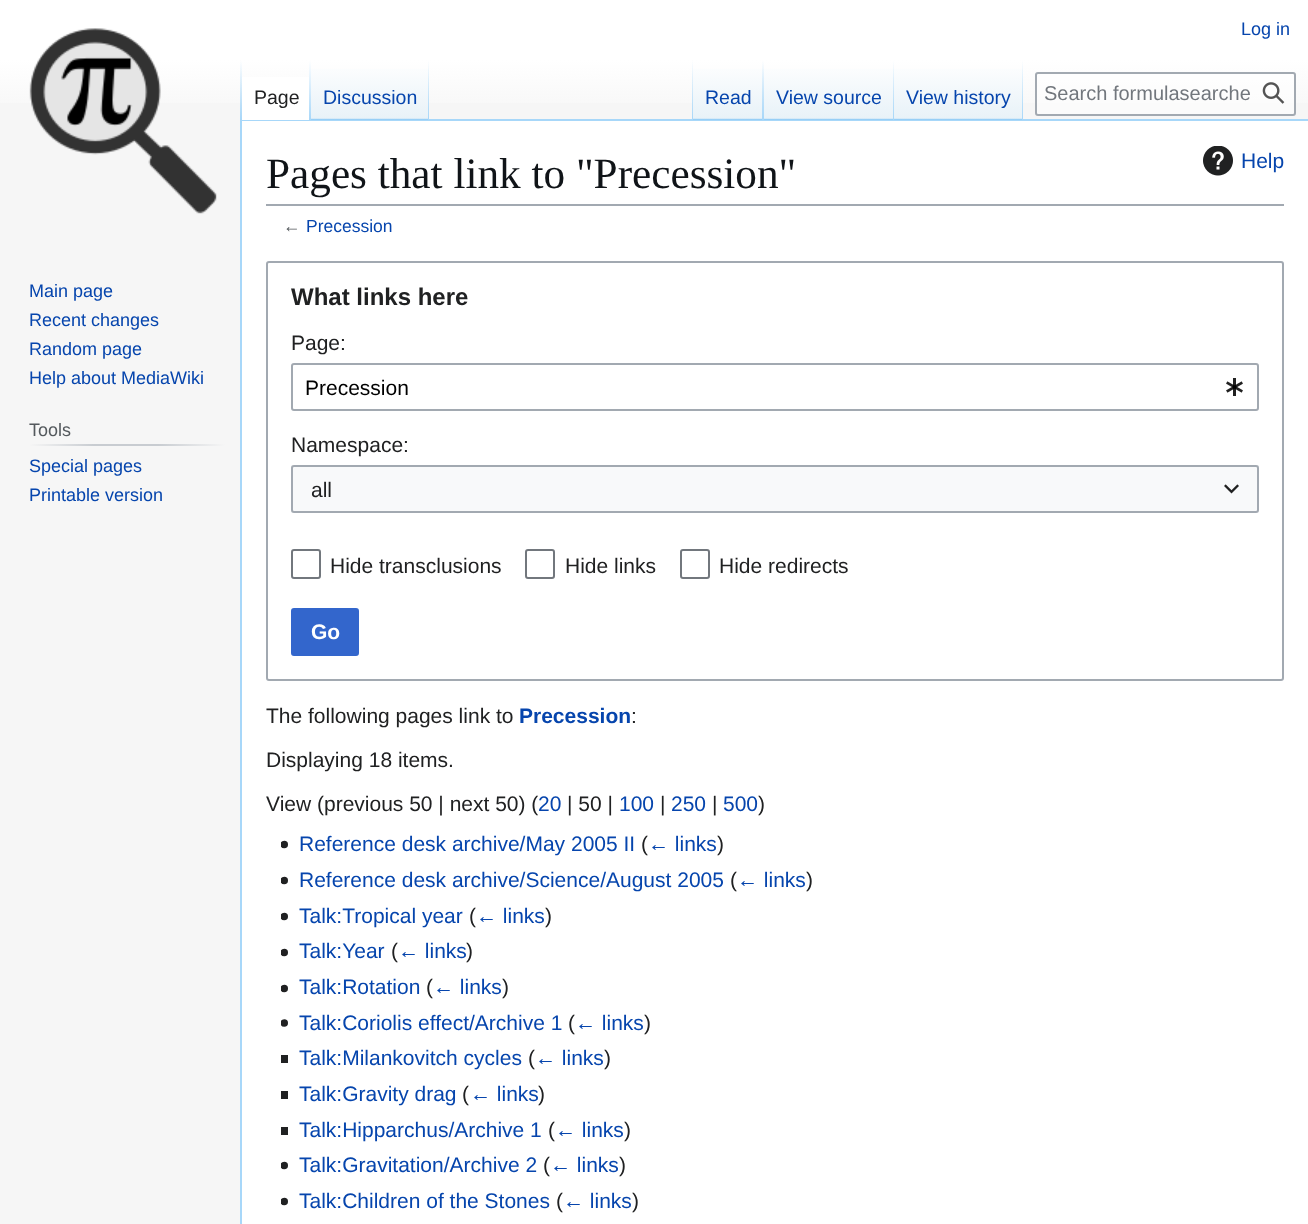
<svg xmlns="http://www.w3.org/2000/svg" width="1308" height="1224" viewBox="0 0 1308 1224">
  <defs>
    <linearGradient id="g1" gradientUnits="userSpaceOnUse" x1="654" y1="0" x2="654" y2="120"><stop offset="0.5" stop-color="#ffffff"/><stop offset="1" stop-color="#f6f6f6"/></linearGradient>
    <linearGradient id="g2" gradientUnits="userSpaceOnUse" x1="241" y1="60" x2="241" y2="120"><stop offset="0" stop-color="#a7d7f9" stop-opacity="0"/><stop offset="1" stop-color="#a7d7f9"/></linearGradient>
    <linearGradient id="g3" gradientUnits="userSpaceOnUse" x1="310" y1="60" x2="310" y2="120"><stop offset="0" stop-color="#ffffff"/><stop offset="1" stop-color="#a7d7f9"/></linearGradient>
    <linearGradient id="g4" gradientUnits="userSpaceOnUse" x1="370" y1="120" x2="370" y2="60"><stop offset="0" stop-color="#77c1f6"/><stop offset="0.03" stop-color="#e8f2f8"/><stop offset="1" stop-color="#ffffff"/></linearGradient>
    <linearGradient id="g5" gradientUnits="userSpaceOnUse" x1="428" y1="60" x2="428" y2="120"><stop offset="0" stop-color="#a7d7f9" stop-opacity="0"/><stop offset="1" stop-color="#a7d7f9"/></linearGradient>
    <linearGradient id="g6" gradientUnits="userSpaceOnUse" x1="692" y1="60" x2="692" y2="120"><stop offset="0" stop-color="#a7d7f9" stop-opacity="0"/><stop offset="1" stop-color="#a7d7f9"/></linearGradient>
    <linearGradient id="g7" gradientUnits="userSpaceOnUse" x1="728" y1="120" x2="728" y2="60"><stop offset="0" stop-color="#77c1f6"/><stop offset="0.03" stop-color="#e8f2f8"/><stop offset="1" stop-color="#ffffff"/></linearGradient>
    <linearGradient id="g8" gradientUnits="userSpaceOnUse" x1="763" y1="60" x2="763" y2="120"><stop offset="0" stop-color="#a7d7f9" stop-opacity="0"/><stop offset="1" stop-color="#a7d7f9"/></linearGradient>
    <linearGradient id="g9" gradientUnits="userSpaceOnUse" x1="829" y1="120" x2="829" y2="60"><stop offset="0" stop-color="#77c1f6"/><stop offset="0.03" stop-color="#e8f2f8"/><stop offset="1" stop-color="#ffffff"/></linearGradient>
    <linearGradient id="g10" gradientUnits="userSpaceOnUse" x1="893" y1="60" x2="893" y2="120"><stop offset="0" stop-color="#a7d7f9" stop-opacity="0"/><stop offset="1" stop-color="#a7d7f9"/></linearGradient>
    <linearGradient id="g11" gradientUnits="userSpaceOnUse" x1="959" y1="120" x2="959" y2="60"><stop offset="0" stop-color="#77c1f6"/><stop offset="0.03" stop-color="#e8f2f8"/><stop offset="1" stop-color="#ffffff"/></linearGradient>
    <linearGradient id="g12" gradientUnits="userSpaceOnUse" x1="1022" y1="60" x2="1022" y2="120"><stop offset="0" stop-color="#a7d7f9" stop-opacity="0"/><stop offset="1" stop-color="#a7d7f9"/></linearGradient>
    <linearGradient id="g13" gradientUnits="userSpaceOnUse" x1="29" y1="445" x2="225" y2="445"><stop offset="0" stop-color="#f6f6f6"/><stop offset="0.33" stop-color="#c8ccd1"/><stop offset="0.66" stop-color="#c8ccd1"/><stop offset="1" stop-color="#f6f6f6"/></linearGradient>
  </defs>
  <rect width="100%" height="100%" fill="#f6f6f6"/>
  <rect x="0" y="0" width="1308" height="103" fill="url(#g1)"/>
  <text x="1241" y="35" font-family="Liberation Sans" font-size="18" fill="#0645ad">Log in</text>
  <rect x="240" y="119" width="1068" height="2" fill="#a7d7f9"/>
  <rect x="240" y="119" width="2" height="1105" fill="#a7d7f9"/>
  <rect x="240" y="60" width="2" height="60" fill="url(#g2)"/>
  <rect x="242" y="77" width="67" height="43" fill="#ffffff"/>
  <rect x="309" y="60" width="2" height="60" fill="url(#g3)"/>
  <text x="254" y="104" font-family="Liberation Sans" font-size="19.5" fill="#202122">Page</text>
  <rect x="311" y="69" width="118" height="51" fill="url(#g4)"/>
  <rect x="428" y="60" width="1" height="60" fill="url(#g5)"/>
  <text x="323" y="104" font-family="Liberation Sans" font-size="19.5" fill="#0645ad">Discussion</text>
  <rect x="692" y="60" width="1" height="60" fill="url(#g6)"/>
  <rect x="693" y="69" width="71" height="51" fill="url(#g7)"/>
  <rect x="762" y="60" width="2" height="60" fill="url(#g8)"/>
  <text x="705" y="104" font-family="Liberation Sans" font-size="19.5" fill="#0645ad">Read</text>
  <rect x="764" y="69" width="130" height="51" fill="url(#g9)"/>
  <rect x="893" y="60" width="1" height="60" fill="url(#g10)"/>
  <text x="776" y="104" font-family="Liberation Sans" font-size="19.5" fill="#0645ad">View source</text>
  <rect x="894" y="69" width="129" height="51" fill="url(#g11)"/>
  <rect x="1022" y="60" width="1" height="60" fill="url(#g12)"/>
  <text x="906" y="104" font-family="Liberation Sans" font-size="19.5" fill="#0645ad">View history</text>
  <rect x="1036" y="73" width="259" height="42" rx="2" fill="#ffffff" fill-opacity="0.5" stroke="#a2a9b1" stroke-width="2"/>
  <text x="1044" y="100" font-family="Liberation Sans" font-size="20" fill="#72777d">Search formulasearche</text>
  <image x="1262" y="82" width="23" height="22" href="img1.png"/>
  <image x="29" y="28" width="188" height="186" href="img2.png"/>
  <text x="29" y="297" font-family="Liberation Sans" font-size="18" fill="#0645ad">Main page</text>
  <text x="29" y="326" font-family="Liberation Sans" font-size="18" fill="#0645ad">Recent changes</text>
  <text x="29" y="355" font-family="Liberation Sans" font-size="18" fill="#0645ad">Random page</text>
  <text x="29" y="384" font-family="Liberation Sans" font-size="18" fill="#0645ad">Help about MediaWiki</text>
  <rect x="29" y="444" width="196" height="2" fill="url(#g13)"/>
  <text x="29" y="436" font-family="Liberation Sans" font-size="18" fill="#54595d">Tools</text>
  <text x="29" y="472" font-family="Liberation Sans" font-size="18" fill="#0645ad">Special pages</text>
  <text x="29" y="501" font-family="Liberation Sans" font-size="18" fill="#0645ad">Printable version</text>
  <rect x="242" y="121" width="1066" height="1103" fill="#ffffff"/>
  <rect x="266" y="204" width="1018" height="2" fill="#a2a9b1"/>
  <text x="266" y="188" font-family="Liberation Serif" font-size="43.25" fill="#101418">Pages that link to "Precession"</text>
  <image x="1203" y="146" width="30" height="30" href="img3.png"/>
  <text x="1241" y="168" font-family="Liberation Sans" font-size="21" fill="#0645ad">Help</text>
  <text x="283" y="232" font-family="Liberation Sans" font-size="17.5" fill="#54595d">←</text>
  <text x="306" y="232" font-family="Liberation Sans" font-size="17.5" fill="#0645ad">Precession</text>
  <rect x="267" y="262" width="1016" height="418" rx="2" fill="none" stroke="#a2a9b1" stroke-width="2"/>
  <text x="291" y="305" font-family="Liberation Sans" font-size="24" font-weight="bold" fill="#202122">What links here</text>
  <text x="291" y="350" font-family="Liberation Sans" font-size="21" fill="#202122">Page:</text>
  <rect x="292" y="364" width="966" height="46" rx="2" fill="none" stroke="#a2a9b1" stroke-width="2"/>
  <text x="305" y="395" font-family="Liberation Sans" font-size="21" fill="#000000">Precession</text>
  <image x="1226" y="378" width="17" height="18" href="img4.png"/>
  <text x="291" y="452" font-family="Liberation Sans" font-size="21" fill="#202122">Namespace:</text>
  <rect x="291" y="465" width="968" height="48" fill="#f8f9fa"/>
  <rect x="292" y="466" width="966" height="46" rx="2" fill="none" stroke="#a2a9b1" stroke-width="2"/>
  <text x="311" y="497" font-family="Liberation Sans" font-size="21" fill="#202122">all</text>
  <image x="1224" y="484" width="15" height="10" href="img5.png"/>
  <rect x="292" y="550" width="28" height="28" rx="2" fill="none" stroke="#72777d" stroke-width="2"/>
  <text x="330" y="573" font-family="Liberation Sans" font-size="21" fill="#202122">Hide transclusions</text>
  <rect x="526" y="550" width="28" height="28" rx="2" fill="none" stroke="#72777d" stroke-width="2"/>
  <text x="565" y="573" font-family="Liberation Sans" font-size="21" fill="#202122">Hide links</text>
  <rect x="681" y="550" width="28" height="28" rx="2" fill="none" stroke="#72777d" stroke-width="2"/>
  <text x="719" y="573" font-family="Liberation Sans" font-size="21" fill="#202122">Hide redirects</text>
  <rect x="292" y="609" width="66" height="46" rx="2" fill="#3366cc" stroke="#3366cc" stroke-width="2"/>
  <text x="311" y="639" font-family="Liberation Sans" font-size="21" font-weight="bold" fill="#ffffff">Go</text>
  <text x="266" y="723" font-family="Liberation Sans" font-size="21" fill="#202122">The following pages link to</text>
  <text x="519" y="723" font-family="Liberation Sans" font-size="21" font-weight="bold" fill="#0645ad">Precession</text>
  <text x="631" y="723" font-family="Liberation Sans" font-size="21" fill="#202122">:</text>
  <text x="266" y="767" font-family="Liberation Sans" font-size="21" fill="#202122">Displaying 18 items.</text>
  <text x="266" y="811" font-family="Liberation Sans" font-size="21" fill="#202122">View (previous 50 | next 50) (</text>
  <text x="538" y="811" font-family="Liberation Sans" font-size="21" fill="#0645ad">20</text>
  <text x="567" y="811" font-family="Liberation Sans" font-size="21" fill="#202122">| 50 |</text>
  <text x="619" y="811" font-family="Liberation Sans" font-size="21" fill="#0645ad">100</text>
  <text x="660" y="811" font-family="Liberation Sans" font-size="21" fill="#202122">|</text>
  <text x="671" y="811" font-family="Liberation Sans" font-size="21" fill="#0645ad">250</text>
  <text x="712" y="811" font-family="Liberation Sans" font-size="21" fill="#202122">|</text>
  <text x="723" y="811" font-family="Liberation Sans" font-size="21" fill="#0645ad">500</text>
  <text x="758" y="811" font-family="Liberation Sans" font-size="21" fill="#202122">)</text>
  <image x="281" y="840" width="7" height="9" href="img6.png"/>
  <text x="299" y="851" font-family="Liberation Sans" font-size="21" fill="#0645ad">Reference desk archive/May 2005 II</text>
  <text x="641" y="851" font-family="Liberation Sans" font-size="21" fill="#202122">(</text>
  <text x="648" y="851" font-family="Liberation Sans" font-size="21" fill="#0645ad">← links</text>
  <text x="717" y="851" font-family="Liberation Sans" font-size="21" fill="#202122">)</text>
  <image x="281" y="876" width="7" height="9" href="img6.png"/>
  <text x="299" y="887" font-family="Liberation Sans" font-size="21" fill="#0645ad">Reference desk archive/Science/August 2005</text>
  <text x="730" y="887" font-family="Liberation Sans" font-size="21" fill="#202122">(</text>
  <text x="737" y="887" font-family="Liberation Sans" font-size="21" fill="#0645ad">← links</text>
  <text x="806" y="887" font-family="Liberation Sans" font-size="21" fill="#202122">)</text>
  <image x="281" y="912" width="7" height="9" href="img6.png"/>
  <text x="299" y="923" font-family="Liberation Sans" font-size="21" fill="#0645ad">Talk:Tropical year</text>
  <text x="469" y="923" font-family="Liberation Sans" font-size="21" fill="#202122">(</text>
  <text x="476" y="923" font-family="Liberation Sans" font-size="21" fill="#0645ad">← links</text>
  <text x="545" y="923" font-family="Liberation Sans" font-size="21" fill="#202122">)</text>
  <image x="281" y="948" width="7" height="9" href="img6.png"/>
  <text x="299" y="958" font-family="Liberation Sans" font-size="21" fill="#0645ad">Talk:Year</text>
  <text x="391" y="958" font-family="Liberation Sans" font-size="21" fill="#202122">(</text>
  <text x="398" y="958" font-family="Liberation Sans" font-size="21" fill="#0645ad">← links</text>
  <text x="466" y="958" font-family="Liberation Sans" font-size="21" fill="#202122">)</text>
  <image x="281" y="984" width="7" height="9" href="img6.png"/>
  <text x="299" y="994" font-family="Liberation Sans" font-size="21" fill="#0645ad">Talk:Rotation</text>
  <text x="426" y="994" font-family="Liberation Sans" font-size="21" fill="#202122">(</text>
  <text x="433" y="994" font-family="Liberation Sans" font-size="21" fill="#0645ad">← links</text>
  <text x="502" y="994" font-family="Liberation Sans" font-size="21" fill="#202122">)</text>
  <image x="281" y="1019" width="7" height="8" href="img7.png"/>
  <text x="299" y="1030" font-family="Liberation Sans" font-size="21" fill="#0645ad">Talk:Coriolis effect/Archive 1</text>
  <text x="568" y="1030" font-family="Liberation Sans" font-size="21" fill="#202122">(</text>
  <text x="575" y="1030" font-family="Liberation Sans" font-size="21" fill="#0645ad">← links</text>
  <text x="644" y="1030" font-family="Liberation Sans" font-size="21" fill="#202122">)</text>
  <rect x="281" y="1055" width="7" height="8" fill="#202122"/>
  <text x="299" y="1065" font-family="Liberation Sans" font-size="21" fill="#0645ad">Talk:Milankovitch cycles</text>
  <text x="528" y="1065" font-family="Liberation Sans" font-size="21" fill="#202122">(</text>
  <text x="535" y="1065" font-family="Liberation Sans" font-size="21" fill="#0645ad">← links</text>
  <text x="604" y="1065" font-family="Liberation Sans" font-size="21" fill="#202122">)</text>
  <rect x="281" y="1091" width="7" height="8" fill="#202122"/>
  <text x="299" y="1101" font-family="Liberation Sans" font-size="21" fill="#0645ad">Talk:Gravity drag</text>
  <text x="462" y="1101" font-family="Liberation Sans" font-size="21" fill="#202122">(</text>
  <text x="470" y="1101" font-family="Liberation Sans" font-size="21" fill="#0645ad">← links</text>
  <text x="538" y="1101" font-family="Liberation Sans" font-size="21" fill="#202122">)</text>
  <rect x="281" y="1127" width="7" height="8" fill="#202122"/>
  <text x="299" y="1137" font-family="Liberation Sans" font-size="21" fill="#0645ad">Talk:Hipparchus/Archive 1</text>
  <text x="548" y="1137" font-family="Liberation Sans" font-size="21" fill="#202122">(</text>
  <text x="555" y="1137" font-family="Liberation Sans" font-size="21" fill="#0645ad">← links</text>
  <text x="624" y="1137" font-family="Liberation Sans" font-size="21" fill="#202122">)</text>
  <image x="281" y="1161" width="7" height="9" href="img6.png"/>
  <text x="299" y="1172" font-family="Liberation Sans" font-size="21" fill="#0645ad">Talk:Gravitation/Archive 2</text>
  <text x="543" y="1172" font-family="Liberation Sans" font-size="21" fill="#202122">(</text>
  <text x="550" y="1172" font-family="Liberation Sans" font-size="21" fill="#0645ad">← links</text>
  <text x="619" y="1172" font-family="Liberation Sans" font-size="21" fill="#202122">)</text>
  <image x="281" y="1197" width="7" height="9" href="img6.png"/>
  <text x="299" y="1208" font-family="Liberation Sans" font-size="21" fill="#0645ad">Talk:Children of the Stones</text>
  <text x="556" y="1208" font-family="Liberation Sans" font-size="21" fill="#202122">(</text>
  <text x="563" y="1208" font-family="Liberation Sans" font-size="21" fill="#0645ad">← links</text>
  <text x="632" y="1208" font-family="Liberation Sans" font-size="21" fill="#202122">)</text>
</svg>
